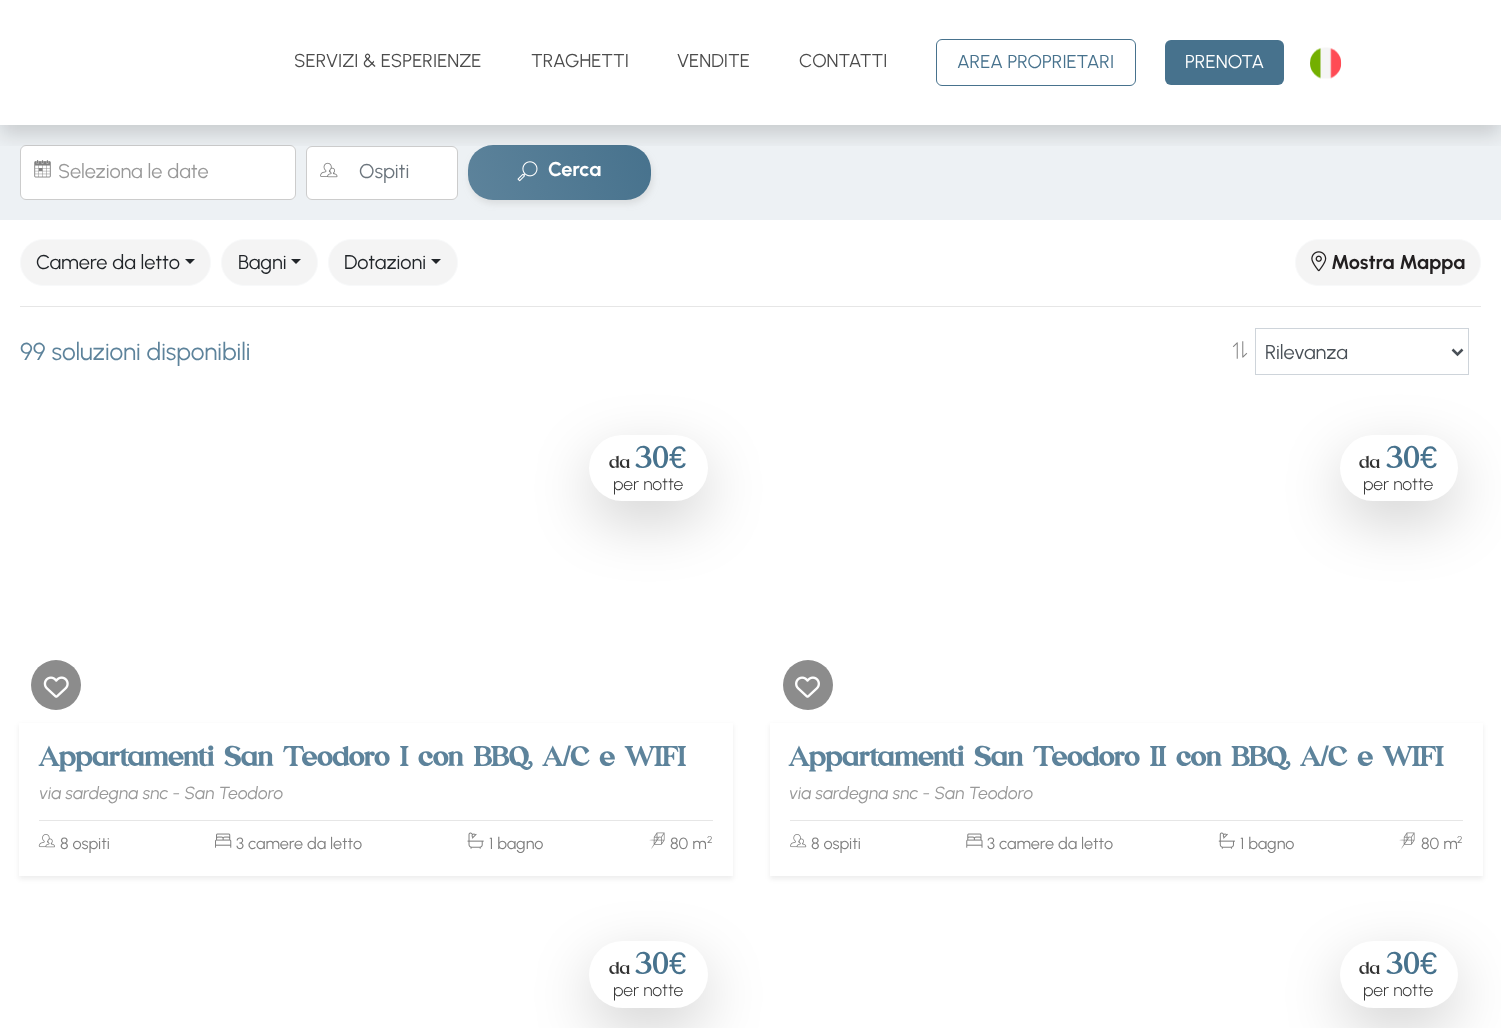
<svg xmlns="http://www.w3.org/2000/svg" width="1501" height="1028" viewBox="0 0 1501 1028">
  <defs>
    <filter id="blur1" x="-50%" y="-200%" width="200%" height="500%"><feGaussianBlur stdDeviation="3"/></filter>
    <linearGradient id="g1" gradientUnits="userSpaceOnUse" x1="649" y1="140" x2="469" y2="205"><stop offset="0" stop-color="#47728d"/><stop offset="1" stop-color="#5d839b"/></linearGradient>
    <clipPath id="clip1"><rect x="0" y="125" width="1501" height="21"/></clipPath>
    <filter id="blur2" x="-50%" y="-200%" width="200%" height="500%"><feGaussianBlur stdDeviation="10"/></filter>
    <filter id="blur3" x="-50%" y="-200%" width="200%" height="500%"><feGaussianBlur stdDeviation="30"/></filter>
    <clipPath id="clip2"><path d="M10 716H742V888H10ZM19 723H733V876H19Z" clip-rule="evenodd"/></clipPath>
    <filter id="blur4" x="-50%" y="-200%" width="200%" height="500%"><feGaussianBlur stdDeviation="2.5"/></filter>
    <clipPath id="clip3"><path d="M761 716H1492V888H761ZM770 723H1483V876H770Z" clip-rule="evenodd"/></clipPath>
  </defs>
  <rect width="100%" height="100%" fill="#ffffff"/>
  <rect x="0" y="125" width="1501" height="95" fill="#edf1f4"/>
  <rect x="20.5" y="145.5" width="275" height="54" rx="5.5" fill="#ffffff" stroke="#cccccc"/>
  <image x="34" y="160" width="17" height="18" href="img2.png"/>
  <rect x="306.5" y="146.5" width="151" height="53" rx="5.5" fill="#ffffff" stroke="#cccccc"/>
  <image x="320" y="162" width="18" height="16" href="img3.png"/>
  <rect x="469" y="149" width="184" height="55" rx="25" fill="#afafaf" fill-opacity="0.3" filter="url(#blur1)"/>
  <rect x="468" y="145" width="183" height="55" rx="25" fill="url(#g1)"/>
  <image x="517" y="161" width="21" height="21" href="img4.png"/>
  <g clip-path="url(#clip1)">
    <rect x="0" y="10" width="1501" height="125" fill="#000000" fill-opacity="0.15" filter="url(#blur2)"/>
  </g>
  <text x="294" y="67" font-family="Urbanist" font-size="18.75" fill="#4c4c4c">SERVIZI &amp; ESPERIENZE</text>
  <text x="531" y="67" font-family="Urbanist" font-size="18.75" fill="#4c4c4c">TRAGHETTI</text>
  <text x="677" y="67" font-family="Urbanist" font-size="18.75" fill="#4c4c4c">VENDITE</text>
  <text x="799" y="67" font-family="Urbanist" font-size="18.75" fill="#4c4c4c">CONTATTI</text>
  <rect x="936.5" y="39.5" width="199" height="46" rx="5.5" fill="none" stroke="#47728d"/>
  <text x="957" y="68" font-family="Urbanist" font-size="18.75" fill="#47728d">AREA PROPRIETARI</text>
  <rect x="1165" y="40" width="119" height="45" rx="6" fill="#47728d"/>
  <text x="1185" y="68" font-family="Urbanist" font-size="18.75" fill="#ffffff">PRENOTA</text>
  <image x="1310" y="47" width="32" height="32" href="img1.png"/>
  <text x="58" y="178" font-family="Urbanist" font-size="20" fill="#999999">Seleziona le date</text>
  <text x="359" y="178" font-family="Urbanist" font-size="20" fill="#6c757d">Ospiti</text>
  <text x="548" y="176" font-family="Urbanist" font-size="20" font-weight="bold" fill="#ffffff">Cerca</text>
  <rect x="20.5" y="239.5" width="190" height="46" rx="23" fill="#f4f4f4" stroke="#f8f9fa"/>
  <text x="36" y="269" font-family="Urbanist" font-size="20" fill="#212529">Camere da letto</text>
  <path d="M185 259H195L190 264Z" fill="#212529"/>
  <rect x="221.5" y="239.5" width="96" height="46" rx="23" fill="#f4f4f4" stroke="#f8f9fa"/>
  <text x="238" y="269" font-family="Urbanist" font-size="20" fill="#212529">Bagni</text>
  <path d="M291 259H301L296 264Z" fill="#212529"/>
  <rect x="328.5" y="239.5" width="129" height="46" rx="23" fill="#f4f4f4" stroke="#f8f9fa"/>
  <text x="344" y="269" font-family="Urbanist" font-size="20" fill="#212529">Dotazioni</text>
  <path d="M431 259H441L436 264Z" fill="#212529"/>
  <rect x="1295.5" y="239.5" width="185" height="46" rx="23" fill="#f4f4f4" stroke="#f8f9fa"/>
  <image x="1311" y="251" width="16" height="21" href="img5.png"/>
  <text x="1331" y="269" font-family="Urbanist" font-size="20" font-weight="bold" fill="#221f20">Mostra Mappa</text>
  <rect x="20" y="306" width="1461" height="1" fill="#e6e6e6"/>
  <text x="20" y="360" font-family="Urbanist" font-size="24.4" fill="#5d839b">99 soluzioni disponibili</text>
  <image x="1232" y="341" width="16" height="18" href="img6.png"/>
  <rect x="1255.5" y="328.5" width="213" height="46" fill="none" stroke="#ced4da"/>
  <path d="M1452.5 349.5L1457.5 354.5L1462.5 349.5" fill="none" stroke="#495057" stroke-width="2.5"/>
  <text x="1265" y="359" font-family="Urbanist" font-size="20" fill="#495057">Rilevanza</text>
  <rect x="589" y="455" width="119" height="66" rx="33" fill="#000000" fill-opacity="0.18" filter="url(#blur3)"/>
  <rect x="589" y="435" width="119" height="66" rx="33" fill="#ffffff"/>
  <text x="609" y="468" font-family="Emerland" font-size="17.5" fill="#333333">da</text>
  <text x="635" y="468" font-family="Emerland" font-size="31" fill="#47728d">30</text>
  <text x="669" y="468" font-family="Liberation Sans" font-size="31" fill="#47728d">€</text>
  <text x="613" y="490" font-family="Urbanist" font-size="17.5" font-weight="300" fill="#333333">per notte</text>
  <circle cx="56" cy="685" r="25" fill="#8c8c8c"/>
  <image x="43" y="676" width="26" height="22" href="img7.png"/>
  <g clip-path="url(#clip2)">
    <rect x="19" y="725" width="714" height="154" fill="#000000" fill-opacity="0.07" filter="url(#blur4)"/>
  </g>
  <text x="39" y="766" font-family="Emerland" font-size="27.5" font-weight="bold" fill="#5d839b">Appartamenti San Teodoro I con BBQ, A/C e WIFI</text>
  <text x="39" y="799" font-family="Urbanist" font-size="17.5" font-style="italic" fill="#999999">via sardegna snc - San Teodoro</text>
  <rect x="39" y="820" width="674" height="1" fill="#e6e6e6"/>
  <image x="38" y="834" width="17" height="14" href="img8.png"/>
  <text x="60" y="849" font-family="Urbanist" font-size="16.25" fill="#808080">8 ospiti</text>
  <image x="215" y="833" width="17" height="15" href="img9.png"/>
  <text x="236" y="849" font-family="Urbanist" font-size="16.25" fill="#808080">3 camere da letto</text>
  <image x="467" y="832" width="17" height="17" href="img10.png"/>
  <text x="489" y="849" font-family="Urbanist" font-size="16.25" fill="#808080">1 bagno</text>
  <image x="649" y="832" width="16" height="17" href="img11.png"/>
  <text x="670" y="849" font-family="Urbanist" font-size="16.25" fill="#808080">80 m</text>
  <text x="707" y="843" font-family="Urbanist" font-size="10" fill="#808080">2</text>
  <rect x="1340" y="455" width="118" height="66" rx="33" fill="#000000" fill-opacity="0.18" filter="url(#blur3)"/>
  <rect x="1340" y="435" width="118" height="66" rx="33" fill="#ffffff"/>
  <text x="1359" y="468" font-family="Emerland" font-size="17.5" fill="#333333">da</text>
  <text x="1386" y="468" font-family="Emerland" font-size="31" fill="#47728d">30</text>
  <text x="1420" y="468" font-family="Liberation Sans" font-size="31" fill="#47728d">€</text>
  <text x="1363" y="490" font-family="Urbanist" font-size="17.5" font-weight="300" fill="#333333">per notte</text>
  <circle cx="808" cy="685" r="25" fill="#8c8c8c"/>
  <image x="795" y="676" width="25" height="22" href="img12.png"/>
  <g clip-path="url(#clip3)">
    <rect x="770" y="725" width="713" height="154" fill="#000000" fill-opacity="0.07" filter="url(#blur4)"/>
  </g>
  <text x="789" y="766" font-family="Emerland" font-size="27.5" font-weight="bold" fill="#5d839b">Appartamenti San Teodoro II con BBQ, A/C e WIFI</text>
  <text x="789" y="799" font-family="Urbanist" font-size="17.5" font-style="italic" fill="#999999">via sardegna snc - San Teodoro</text>
  <rect x="790" y="820" width="673" height="1" fill="#e6e6e6"/>
  <image x="790" y="834" width="17" height="14" href="img13.png"/>
  <text x="811" y="849" font-family="Urbanist" font-size="16.25" fill="#808080">8 ospiti</text>
  <image x="966" y="833" width="17" height="15" href="img14.png"/>
  <text x="987" y="849" font-family="Urbanist" font-size="16.25" fill="#808080">3 camere da letto</text>
  <image x="1218" y="832" width="17" height="17" href="img15.png"/>
  <text x="1240" y="849" font-family="Urbanist" font-size="16.25" fill="#808080">1 bagno</text>
  <image x="1399" y="832" width="16" height="17" href="img11.png"/>
  <text x="1421" y="849" font-family="Urbanist" font-size="16.25" fill="#808080">80 m</text>
  <text x="1457" y="843" font-family="Urbanist" font-size="10" fill="#808080">2</text>
  <rect x="589" y="961" width="119" height="67" rx="33.5" fill="#000000" fill-opacity="0.18" filter="url(#blur3)"/>
  <rect x="589" y="941" width="119" height="67" rx="33.5" fill="#ffffff"/>
  <text x="609" y="974" font-family="Emerland" font-size="17.5" fill="#333333">da</text>
  <text x="635" y="974" font-family="Emerland" font-size="31" fill="#47728d">30</text>
  <text x="669" y="974" font-family="Liberation Sans" font-size="31" fill="#47728d">€</text>
  <text x="613" y="996" font-family="Urbanist" font-size="17.5" font-weight="300" fill="#333333">per notte</text>
  <rect x="1340" y="961" width="118" height="67" rx="33.5" fill="#000000" fill-opacity="0.18" filter="url(#blur3)"/>
  <rect x="1340" y="941" width="118" height="67" rx="33.5" fill="#ffffff"/>
  <text x="1359" y="974" font-family="Emerland" font-size="17.5" fill="#333333">da</text>
  <text x="1386" y="974" font-family="Emerland" font-size="31" fill="#47728d">30</text>
  <text x="1420" y="974" font-family="Liberation Sans" font-size="31" fill="#47728d">€</text>
  <text x="1363" y="996" font-family="Urbanist" font-size="17.5" font-weight="300" fill="#333333">per notte</text>
</svg>
